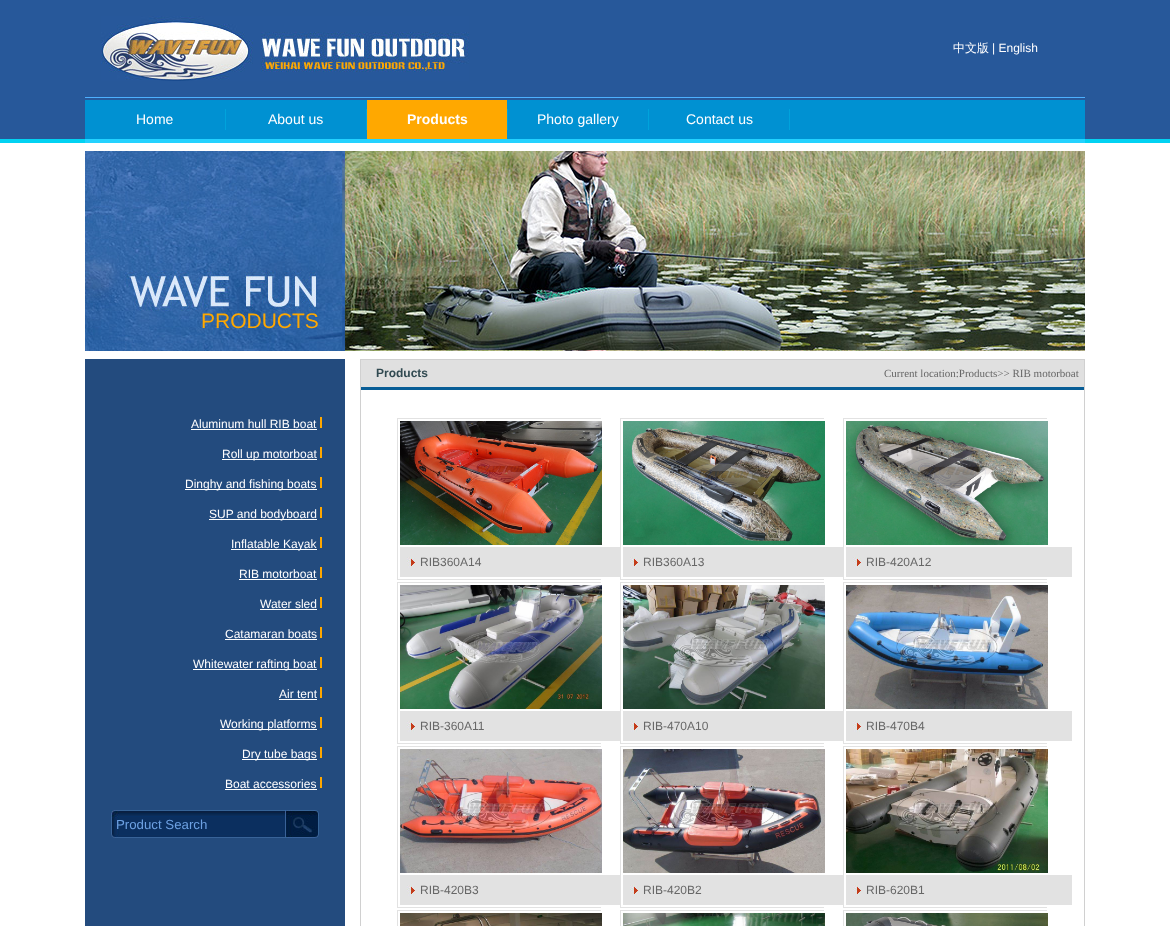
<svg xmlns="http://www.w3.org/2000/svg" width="1170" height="926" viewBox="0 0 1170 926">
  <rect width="100%" height="100%" fill="#27589a"/>
  <rect x="0" y="139" width="1170" height="4" fill="#02d2f2"/>
  <image x="101" y="16" width="368" height="65" href="img1.png"/>
  <text x="953" y="52" font-family="WenQuanYi Zen Hei" font-size="12" font-weight="500" fill="#fffeff">中文版</text>
  <text x="992" y="52" font-family="Liberation Sans" font-size="12" fill="#fffeff">| English</text>
  <rect x="85" y="97" width="1000" height="1" fill="#4db0ff"/>
  <rect x="85" y="100" width="1000" height="39" fill="#0091d2"/>
  <text x="136" y="124" font-family="Liberation Sans" font-size="14" fill="#fffeff">Home</text>
  <image x="225" y="109" width="1" height="21" href="img2.png"/>
  <text x="268" y="124" font-family="Liberation Sans" font-size="14" fill="#fffeff">About us</text>
  <image x="366" y="109" width="1" height="21" href="img2.png"/>
  <rect x="367" y="100" width="140" height="39" fill="#ffa800"/>
  <text x="407" y="124" font-family="Liberation Sans" font-size="14" font-weight="bold" fill="#fffeff">Products</text>
  <image x="507" y="109" width="1" height="21" href="img2.png"/>
  <text x="537" y="124" font-family="Liberation Sans" font-size="14" fill="#fffeff">Photo gallery</text>
  <image x="648" y="109" width="1" height="21" href="img2.png"/>
  <text x="686" y="124" font-family="Liberation Sans" font-size="14" fill="#fffeff">Contact us</text>
  <image x="789" y="109" width="1" height="21" href="img2.png"/>
  <rect x="85" y="139" width="1000" height="4" fill="#23d2ff"/>
  <rect x="0" y="143" width="1170" height="783" fill="#ffffff"/>
  <image x="85" y="151" width="260" height="200" href="img3.png"/>
  <text x="201" y="328" font-family="Liberation Sans" font-size="21" fill="#ffa800">PRODUCTS</text>
  <image x="345" y="151" width="740" height="200" href="img4.png"/>
  <rect x="85" y="359" width="260" height="567" fill="#234b7e"/>
  <text x="191" y="428" font-family="Liberation Sans" font-size="12" fill="#fffeff">Aluminum hull RIB boat</text>
  <rect x="191" y="429" width="126" height="1" fill="#ffffff"/>
  <rect x="320" y="417" width="2" height="11" fill="#ffa800"/>
  <rect x="222" y="459" width="95" height="1" fill="#ffffff"/>
  <text x="222" y="458" font-family="Liberation Sans" font-size="12" fill="#fffeff">Roll up motorboat</text>
  <rect x="320" y="447" width="2" height="11" fill="#ffa800"/>
  <rect x="185" y="489" width="132" height="1" fill="#ffffff"/>
  <text x="185" y="488" font-family="Liberation Sans" font-size="12" fill="#fffeff">Dinghy and fishing boats</text>
  <rect x="320" y="477" width="2" height="11" fill="#ffa800"/>
  <rect x="209" y="519" width="108" height="1" fill="#ffffff"/>
  <text x="209" y="518" font-family="Liberation Sans" font-size="12" fill="#fffeff">SUP and bodyboard</text>
  <rect x="320" y="507" width="2" height="11" fill="#ffa800"/>
  <rect x="231" y="549" width="86" height="1" fill="#ffffff"/>
  <text x="231" y="548" font-family="Liberation Sans" font-size="12" fill="#fffeff">Inflatable Kayak</text>
  <rect x="320" y="537" width="2" height="11" fill="#ffa800"/>
  <text x="239" y="578" font-family="Liberation Sans" font-size="12" fill="#fffeff">RIB motorboat</text>
  <rect x="239" y="579" width="78" height="1" fill="#ffffff"/>
  <rect x="320" y="567" width="2" height="11" fill="#ffa800"/>
  <text x="260" y="608" font-family="Liberation Sans" font-size="12" fill="#fffeff">Water sled</text>
  <rect x="260" y="609" width="57" height="1" fill="#ffffff"/>
  <rect x="320" y="597" width="2" height="11" fill="#ffa800"/>
  <text x="225" y="638" font-family="Liberation Sans" font-size="12" fill="#fffeff">Catamaran boats</text>
  <rect x="225" y="639" width="92" height="1" fill="#ffffff"/>
  <rect x="320" y="627" width="2" height="11" fill="#ffa800"/>
  <rect x="193" y="669" width="124" height="1" fill="#ffffff"/>
  <text x="193" y="668" font-family="Liberation Sans" font-size="12" fill="#fffeff">Whitewater rafting boat</text>
  <rect x="320" y="657" width="2" height="11" fill="#ffa800"/>
  <text x="279" y="698" font-family="Liberation Sans" font-size="12" fill="#fffeff">Air tent</text>
  <rect x="279" y="699" width="38" height="1" fill="#ffffff"/>
  <rect x="320" y="687" width="2" height="11" fill="#ffa800"/>
  <rect x="220" y="729" width="97" height="1" fill="#ffffff"/>
  <text x="220" y="728" font-family="Liberation Sans" font-size="12" fill="#fffeff">Working platforms</text>
  <rect x="320" y="717" width="2" height="11" fill="#ffa800"/>
  <rect x="242" y="759" width="75" height="1" fill="#ffffff"/>
  <text x="242" y="758" font-family="Liberation Sans" font-size="12" fill="#fffeff">Dry tube bags</text>
  <rect x="320" y="747" width="2" height="11" fill="#ffa800"/>
  <text x="225" y="788" font-family="Liberation Sans" font-size="12" fill="#fffeff">Boat accessories</text>
  <rect x="225" y="789" width="92" height="1" fill="#ffffff"/>
  <rect x="320" y="777" width="2" height="11" fill="#ffa800"/>
  <image x="111" y="810" width="174" height="28" href="img5.png"/>
  <text x="116" y="829" font-family="Liberation Sans" font-size="13.25" fill="#6da1e3">Product Search</text>
  <image x="285" y="810" width="34" height="28" href="img6.png"/>
  <rect x="360.5" y="359.5" width="724" height="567" fill="none" stroke="#d0d0d0"/>
  <rect x="361" y="360" width="723" height="27" fill="#e0e0e0"/>
  <rect x="361" y="387" width="723" height="3" fill="#085d96"/>
  <text x="376" y="377" font-family="Liberation Sans" font-size="12" font-weight="bold" fill="#314a51">Products</text>
  <text x="884" y="377" font-family="Liberation Serif" font-size="11" fill="#676767">Current location:Products&gt;&gt; RIB motorboat</text>
  <rect x="397.5" y="418.5" width="203" height="161" fill="none" stroke="#e2e2e2"/>
  <rect x="399" y="420" width="204" height="126" fill="none" stroke="#ffffff" stroke-width="2"/>
  <image x="400" y="421" width="202" height="124" href="img7.png"/>
  <rect x="400" y="547" width="220" height="30" fill="#e2e2e2"/>
  <image x="407" y="557" width="8" height="11" href="img8.png"/>
  <rect x="600" y="577" width="1" height="2" fill="#ffffff"/>
  <text x="420" y="566" font-family="Liberation Sans" font-size="12" fill="#676767">RIB360A14</text>
  <rect x="620.5" y="418.5" width="203" height="161" fill="none" stroke="#e2e2e2"/>
  <rect x="622" y="420" width="204" height="126" fill="none" stroke="#ffffff" stroke-width="2"/>
  <image x="623" y="421" width="202" height="124" href="img9.png"/>
  <rect x="623" y="547" width="220" height="30" fill="#e2e2e2"/>
  <image x="630" y="557" width="8" height="11" href="img8.png"/>
  <rect x="823" y="577" width="1" height="2" fill="#ffffff"/>
  <text x="643" y="566" font-family="Liberation Sans" font-size="12" fill="#676767">RIB360A13</text>
  <rect x="843.5" y="418.5" width="203" height="161" fill="none" stroke="#e2e2e2"/>
  <rect x="845" y="420" width="204" height="126" fill="none" stroke="#ffffff" stroke-width="2"/>
  <image x="846" y="421" width="202" height="124" href="img10.png"/>
  <rect x="846" y="547" width="226" height="30" fill="#e2e2e2"/>
  <image x="853" y="557" width="8" height="11" href="img8.png"/>
  <rect x="1046" y="577" width="1" height="2" fill="#ffffff"/>
  <text x="866" y="566" font-family="Liberation Sans" font-size="12" fill="#676767">RIB-420A12</text>
  <rect x="397.5" y="582.5" width="203" height="161" fill="none" stroke="#e2e2e2"/>
  <rect x="399" y="584" width="204" height="126" fill="none" stroke="#ffffff" stroke-width="2"/>
  <image x="400" y="585" width="202" height="124" href="img11.png"/>
  <rect x="400" y="711" width="220" height="30" fill="#e2e2e2"/>
  <image x="407" y="721" width="8" height="11" href="img8.png"/>
  <rect x="600" y="741" width="1" height="2" fill="#ffffff"/>
  <text x="420" y="730" font-family="Liberation Sans" font-size="12" fill="#676767">RIB-360A11</text>
  <rect x="620.5" y="582.5" width="203" height="161" fill="none" stroke="#e2e2e2"/>
  <rect x="622" y="584" width="204" height="126" fill="none" stroke="#ffffff" stroke-width="2"/>
  <image x="623" y="585" width="202" height="124" href="img12.png"/>
  <rect x="623" y="711" width="220" height="30" fill="#e2e2e2"/>
  <image x="630" y="721" width="8" height="11" href="img8.png"/>
  <rect x="823" y="741" width="1" height="2" fill="#ffffff"/>
  <text x="643" y="730" font-family="Liberation Sans" font-size="12" fill="#676767">RIB-470A10</text>
  <rect x="843.5" y="582.5" width="203" height="161" fill="none" stroke="#e2e2e2"/>
  <rect x="845" y="584" width="204" height="126" fill="none" stroke="#ffffff" stroke-width="2"/>
  <image x="846" y="585" width="202" height="124" href="img13.png"/>
  <rect x="846" y="711" width="226" height="30" fill="#e2e2e2"/>
  <image x="853" y="721" width="8" height="11" href="img8.png"/>
  <rect x="1046" y="741" width="1" height="2" fill="#ffffff"/>
  <text x="866" y="730" font-family="Liberation Sans" font-size="12" fill="#676767">RIB-470B4</text>
  <rect x="397.5" y="746.5" width="203" height="161" fill="none" stroke="#e2e2e2"/>
  <rect x="399" y="748" width="204" height="126" fill="none" stroke="#ffffff" stroke-width="2"/>
  <image x="400" y="749" width="202" height="124" href="img14.png"/>
  <rect x="400" y="875" width="220" height="30" fill="#e2e2e2"/>
  <image x="407" y="885" width="8" height="11" href="img8.png"/>
  <rect x="600" y="905" width="1" height="2" fill="#ffffff"/>
  <text x="420" y="894" font-family="Liberation Sans" font-size="12" fill="#676767">RIB-420B3</text>
  <rect x="620.5" y="746.5" width="203" height="161" fill="none" stroke="#e2e2e2"/>
  <rect x="622" y="748" width="204" height="126" fill="none" stroke="#ffffff" stroke-width="2"/>
  <image x="623" y="749" width="202" height="124" href="img15.png"/>
  <rect x="623" y="875" width="220" height="30" fill="#e2e2e2"/>
  <image x="630" y="885" width="8" height="11" href="img8.png"/>
  <rect x="823" y="905" width="1" height="2" fill="#ffffff"/>
  <text x="643" y="894" font-family="Liberation Sans" font-size="12" fill="#676767">RIB-420B2</text>
  <rect x="843.5" y="746.5" width="203" height="161" fill="none" stroke="#e2e2e2"/>
  <rect x="845" y="748" width="204" height="126" fill="none" stroke="#ffffff" stroke-width="2"/>
  <image x="846" y="749" width="202" height="124" href="img16.png"/>
  <rect x="846" y="875" width="226" height="30" fill="#e2e2e2"/>
  <image x="853" y="885" width="8" height="11" href="img8.png"/>
  <rect x="1046" y="905" width="1" height="2" fill="#ffffff"/>
  <text x="866" y="894" font-family="Liberation Sans" font-size="12" fill="#676767">RIB-620B1</text>
  <rect x="397.5" y="910.5" width="203" height="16" fill="none" stroke="#e2e2e2"/>
  <rect x="399" y="912" width="204" height="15" fill="none" stroke="#ffffff" stroke-width="2"/>
  <image x="400" y="913" width="202" height="13" href="img17.png"/>
  <rect x="620.5" y="910.5" width="203" height="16" fill="none" stroke="#e2e2e2"/>
  <rect x="622" y="912" width="204" height="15" fill="none" stroke="#ffffff" stroke-width="2"/>
  <image x="623" y="913" width="202" height="13" href="img18.png"/>
  <rect x="843.5" y="910.5" width="203" height="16" fill="none" stroke="#e2e2e2"/>
  <rect x="845" y="912" width="204" height="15" fill="none" stroke="#ffffff" stroke-width="2"/>
  <image x="846" y="913" width="202" height="13" href="img19.png"/>
</svg>
